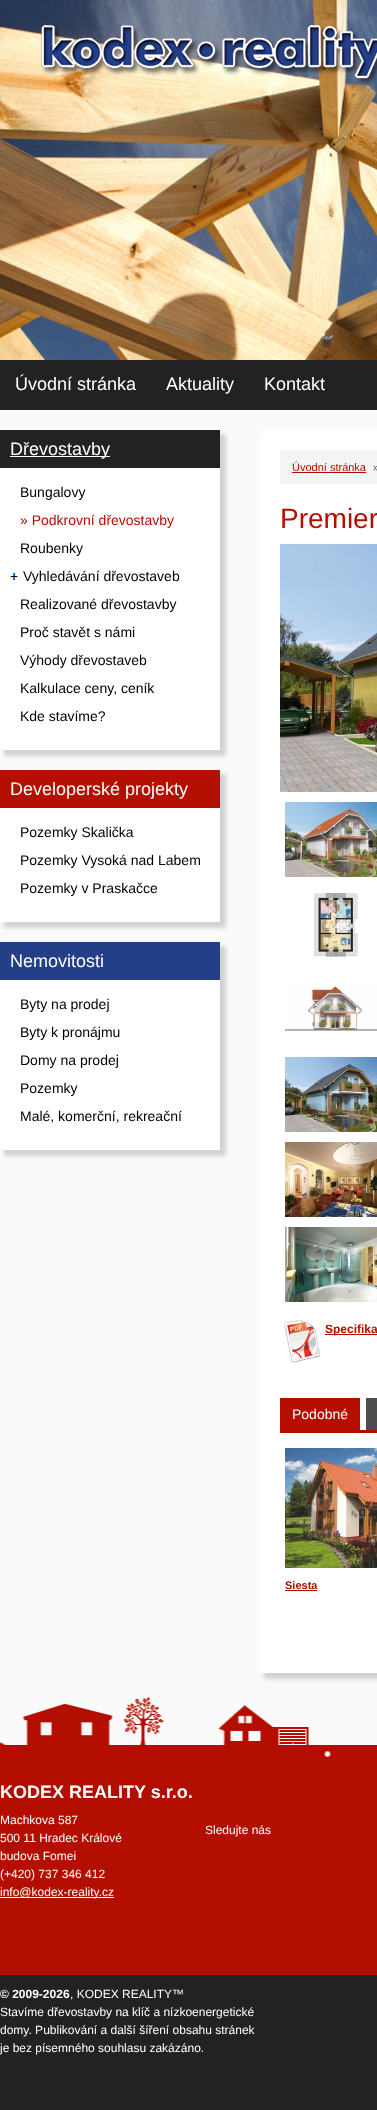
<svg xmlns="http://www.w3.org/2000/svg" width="377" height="2110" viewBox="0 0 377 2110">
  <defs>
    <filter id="blur1" x="-50%" y="-200%" width="200%" height="500%"><feGaussianBlur stdDeviation="2"/></filter>
  </defs>
  <rect width="100%" height="100%" fill="#fafafa"/>
  <rect x="0" y="360" width="377" height="50" fill="#222222"/>
  <image x="0" y="0" width="377" height="360" href="img1.png"/>
  <text x="15" y="390" font-family="Liberation Sans" font-size="18" fill="#ffffff">Úvodní stránka</text>
  <text x="166" y="390" font-family="Liberation Sans" font-size="18" fill="#ffffff">Aktuality</text>
  <text x="264" y="390" font-family="Liberation Sans" font-size="18" fill="#ffffff">Kontakt</text>
  <rect x="4" y="434" width="222" height="322" fill="#d1d1d1" filter="url(#blur1)"/>
  <rect x="0" y="468" width="220" height="282" fill="#ffffff"/>
  <rect x="0" y="430" width="220" height="38" fill="#222222"/>
  <rect x="10" y="456" width="100" height="1" fill="#ffffff"/>
  <text x="10" y="455" font-family="Liberation Sans" font-size="18" fill="#ffffff">Dřevostavby</text>
  <text x="20" y="497" font-family="Liberation Sans" font-size="14" fill="#000000">Bungalovy</text>
  <text x="20" y="525" font-family="Liberation Sans" font-size="14" fill="#b50d00">» Podkrovní dřevostavby</text>
  <text x="20" y="553" font-family="Liberation Sans" font-size="14" fill="#000000">Roubenky</text>
  <image x="10" y="573" width="8" height="7" href="img2.png"/>
  <text x="23" y="581" font-family="Liberation Sans" font-size="14" fill="#000000">Vyhledávání dřevostaveb</text>
  <text x="20" y="609" font-family="Liberation Sans" font-size="14" fill="#000000">Realizované dřevostavby</text>
  <text x="20" y="637" font-family="Liberation Sans" font-size="14" fill="#000000">Proč stavět s námi</text>
  <text x="20" y="665" font-family="Liberation Sans" font-size="14" fill="#000000">Výhody dřevostaveb</text>
  <text x="20" y="693" font-family="Liberation Sans" font-size="14" fill="#000000">Kalkulace ceny, ceník</text>
  <text x="20" y="721" font-family="Liberation Sans" font-size="14" fill="#000000">Kde stavíme?</text>
  <rect x="4" y="774" width="222" height="154" fill="#d1d1d1" filter="url(#blur1)"/>
  <rect x="0" y="808" width="220" height="114" fill="#ffffff"/>
  <rect x="0" y="770" width="220" height="38" fill="#b40f00"/>
  <text x="10" y="795" font-family="Liberation Sans" font-size="18" fill="#ffffff">Developerské projekty</text>
  <text x="20" y="837" font-family="Liberation Sans" font-size="14" fill="#000000">Pozemky Skalička</text>
  <text x="20" y="865" font-family="Liberation Sans" font-size="14" fill="#000000">Pozemky Vysoká nad Labem</text>
  <text x="20" y="893" font-family="Liberation Sans" font-size="14" fill="#000000">Pozemky v Praskačce</text>
  <rect x="4" y="946" width="222" height="210" fill="#d1d1d1" filter="url(#blur1)"/>
  <rect x="0" y="980" width="220" height="170" fill="#ffffff"/>
  <rect x="0" y="942" width="220" height="38" fill="#233f88"/>
  <text x="10" y="967" font-family="Liberation Sans" font-size="18" fill="#ffffff">Nemovitosti</text>
  <text x="20" y="1009" font-family="Liberation Sans" font-size="14" fill="#000000">Byty na prodej</text>
  <text x="20" y="1037" font-family="Liberation Sans" font-size="14" fill="#000000">Byty k pronájmu</text>
  <text x="20" y="1065" font-family="Liberation Sans" font-size="14" fill="#000000">Domy na prodej</text>
  <text x="20" y="1093" font-family="Liberation Sans" font-size="14" fill="#000000">Pozemky</text>
  <text x="20" y="1121" font-family="Liberation Sans" font-size="14" fill="#000000">Malé, komerční, rekreační</text>
  <rect x="264" y="434" width="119" height="1245" fill="#d1d1d1" filter="url(#blur1)"/>
  <rect x="260" y="430" width="117" height="1243" fill="#ffffff"/>
  <rect x="280" y="450" width="97" height="34" fill="#f4f4f4"/>
  <text x="292" y="471" font-family="Liberation Sans" font-size="11" fill="#b50d00">Úvodní stránka</text>
  <rect x="292" y="472" width="74" height="1" fill="#b50d00"/>
  <text x="373" y="471" font-family="Liberation Sans" font-size="11" fill="#4d4d4d">»</text>
  <text x="280" y="528" font-family="Liberation Sans" font-size="28" fill="#b50d00">Premier</text>
  <image x="280" y="544" width="97" height="248" href="img3.png"/>
  <image x="285" y="802" width="92" height="75" href="img4.png"/>
  <image x="314" y="893" width="44" height="64" href="img5.png"/>
  <image x="285" y="985" width="92" height="46" href="img6.png"/>
  <image x="285" y="1057" width="92" height="75" href="img7.png"/>
  <image x="285" y="1142" width="92" height="75" href="img8.png"/>
  <image x="285" y="1227" width="92" height="75" href="img9.png"/>
  <image x="284" y="1320" width="37" height="43" href="img10.png"/>
  <rect x="325" y="1334" width="52" height="1" fill="#b50d00"/>
  <text x="325" y="1333" font-family="Liberation Sans" font-size="12" font-weight="bold" fill="#b50d00">Specifika</text>
  <rect x="280" y="1430" width="97" height="3" fill="#b50d00"/>
  <rect x="280" y="1398" width="80" height="32" fill="#b50d00"/>
  <text x="292" y="1419" font-family="Liberation Sans" font-size="14" fill="#ffffff">Podobné</text>
  <rect x="366" y="1398" width="11" height="32" fill="#4d4d4d"/>
  <image x="285" y="1448" width="92" height="120" href="img11.png"/>
  <text x="285" y="1589" font-family="Liberation Sans" font-size="11" font-weight="bold" fill="#b50d00">Siesta</text>
  <rect x="285" y="1590" width="32" height="1" fill="#b50d00"/>
  <rect x="0" y="1757" width="377" height="218" fill="#b40e00"/>
  <image x="0" y="1693" width="377" height="64" href="img12.png"/>
  <text x="0" y="1798" font-family="Liberation Sans" font-size="18" font-weight="bold" fill="#ffffff">KODEX REALITY s.r.o.</text>
  <text x="0" y="1824" font-family="Liberation Sans" font-size="12" fill="#ffffff">Machkova 587</text>
  <text x="0" y="1842" font-family="Liberation Sans" font-size="12" fill="#ffffff">500 11 Hradec Králové</text>
  <text x="0" y="1860" font-family="Liberation Sans" font-size="12" fill="#ffffff">budova Fomei</text>
  <text x="0" y="1878" font-family="Liberation Sans" font-size="12" fill="#ffffff">(+420) 737 346 412</text>
  <rect x="0" y="1897" width="114" height="1" fill="#ffffff"/>
  <text x="0" y="1896" font-family="Liberation Sans" font-size="12" fill="#ffffff">info@kodex-reality.cz</text>
  <text x="205" y="1834" font-family="Liberation Sans" font-size="12" fill="#ffffff">Sledujte nás</text>
  <rect x="0" y="1975" width="377" height="135" fill="#222222"/>
  <text x="0" y="1998" font-family="Liberation Sans" font-size="12" font-weight="bold" fill="#ffffff">© 2009-2026</text>
  <text x="70" y="1998" font-family="Liberation Sans" font-size="12" fill="#ffffff">, KODEX REALITY™</text>
  <text x="0" y="2016" font-family="Liberation Sans" font-size="12" fill="#ffffff">Stavíme dřevostavby na klíč a nízkoenergetické</text>
  <text x="0" y="2034" font-family="Liberation Sans" font-size="12" fill="#ffffff">domy. Publikování a další šíření obsahu stránek</text>
  <text x="0" y="2052" font-family="Liberation Sans" font-size="12" fill="#ffffff">je bez písemného souhlasu zakázáno.</text>
</svg>
